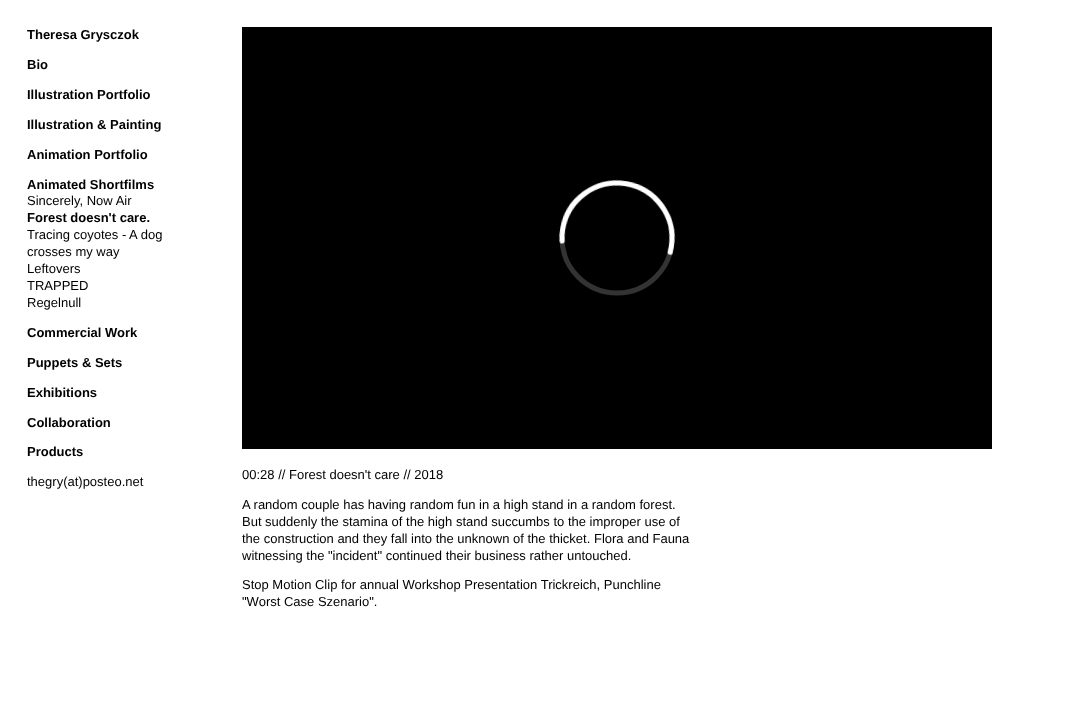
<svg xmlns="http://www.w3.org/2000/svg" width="1074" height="708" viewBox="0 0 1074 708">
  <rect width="100%" height="100%" fill="#ffffff"/>
  <text x="27" y="39" font-family="Liberation Sans" font-size="13" font-weight="bold" fill="#000000">Theresa Grysczok</text>
  <text x="27" y="69" font-family="Liberation Sans" font-size="13" font-weight="bold" fill="#000000">Bio</text>
  <text x="27" y="99" font-family="Liberation Sans" font-size="13" font-weight="bold" fill="#000000">Illustration Portfolio</text>
  <text x="27" y="129" font-family="Liberation Sans" font-size="13" font-weight="bold" fill="#000000">Illustration &amp; Painting</text>
  <text x="27" y="159" font-family="Liberation Sans" font-size="13" font-weight="bold" fill="#000000">Animation Portfolio</text>
  <text x="27" y="189" font-family="Liberation Sans" font-size="13" font-weight="bold" fill="#000000">Animated Shortfilms</text>
  <text x="27" y="205" font-family="Liberation Sans" font-size="13" fill="#000000">Sincerely, Now Air</text>
  <text x="27" y="222" font-family="Liberation Sans" font-size="13" font-weight="bold" fill="#000000">Forest doesn't care.</text>
  <text x="27" y="239" font-family="Liberation Sans" font-size="13" fill="#000000">Tracing coyotes - A dog</text>
  <text x="27" y="256" font-family="Liberation Sans" font-size="13" fill="#000000">crosses my way</text>
  <text x="27" y="273" font-family="Liberation Sans" font-size="13" fill="#000000">Leftovers</text>
  <text x="27" y="290" font-family="Liberation Sans" font-size="13" fill="#000000">TRAPPED</text>
  <text x="27" y="307" font-family="Liberation Sans" font-size="13" fill="#000000">Regelnull</text>
  <text x="27" y="337" font-family="Liberation Sans" font-size="13" font-weight="bold" fill="#000000">Commercial Work</text>
  <text x="27" y="367" font-family="Liberation Sans" font-size="13" font-weight="bold" fill="#000000">Puppets &amp; Sets</text>
  <text x="27" y="397" font-family="Liberation Sans" font-size="13" font-weight="bold" fill="#000000">Exhibitions</text>
  <text x="27" y="427" font-family="Liberation Sans" font-size="13" font-weight="bold" fill="#000000">Collaboration</text>
  <text x="27" y="456" font-family="Liberation Sans" font-size="13" font-weight="bold" fill="#000000">Products</text>
  <text x="27" y="486" font-family="Liberation Sans" font-size="13" fill="#000000">thegry(at)posteo.net</text>
  <image x="242" y="27" width="750" height="422" href="img1.png"/>
  <text x="242" y="479" font-family="Liberation Sans" font-size="13" fill="#000000">00:28 // Forest doesn't care // 2018</text>
  <text x="242" y="509" font-family="Liberation Sans" font-size="13" fill="#000000">A random couple has having random fun in a high stand in a random forest.</text>
  <text x="242" y="526" font-family="Liberation Sans" font-size="13" fill="#000000">But suddenly the stamina of the high stand succumbs to the improper use of</text>
  <text x="242" y="543" font-family="Liberation Sans" font-size="13" fill="#000000">the construction and they fall into the unknown of the thicket. Flora and Fauna</text>
  <text x="242" y="560" font-family="Liberation Sans" font-size="13" fill="#000000">witnessing the "incident" continued their business rather untouched.</text>
  <text x="242" y="589" font-family="Liberation Sans" font-size="13" fill="#000000">Stop Motion Clip for annual Workshop Presentation Trickreich, Punchline</text>
  <text x="242" y="606" font-family="Liberation Sans" font-size="13" fill="#000000">"Worst Case Szenario".</text>
</svg>
